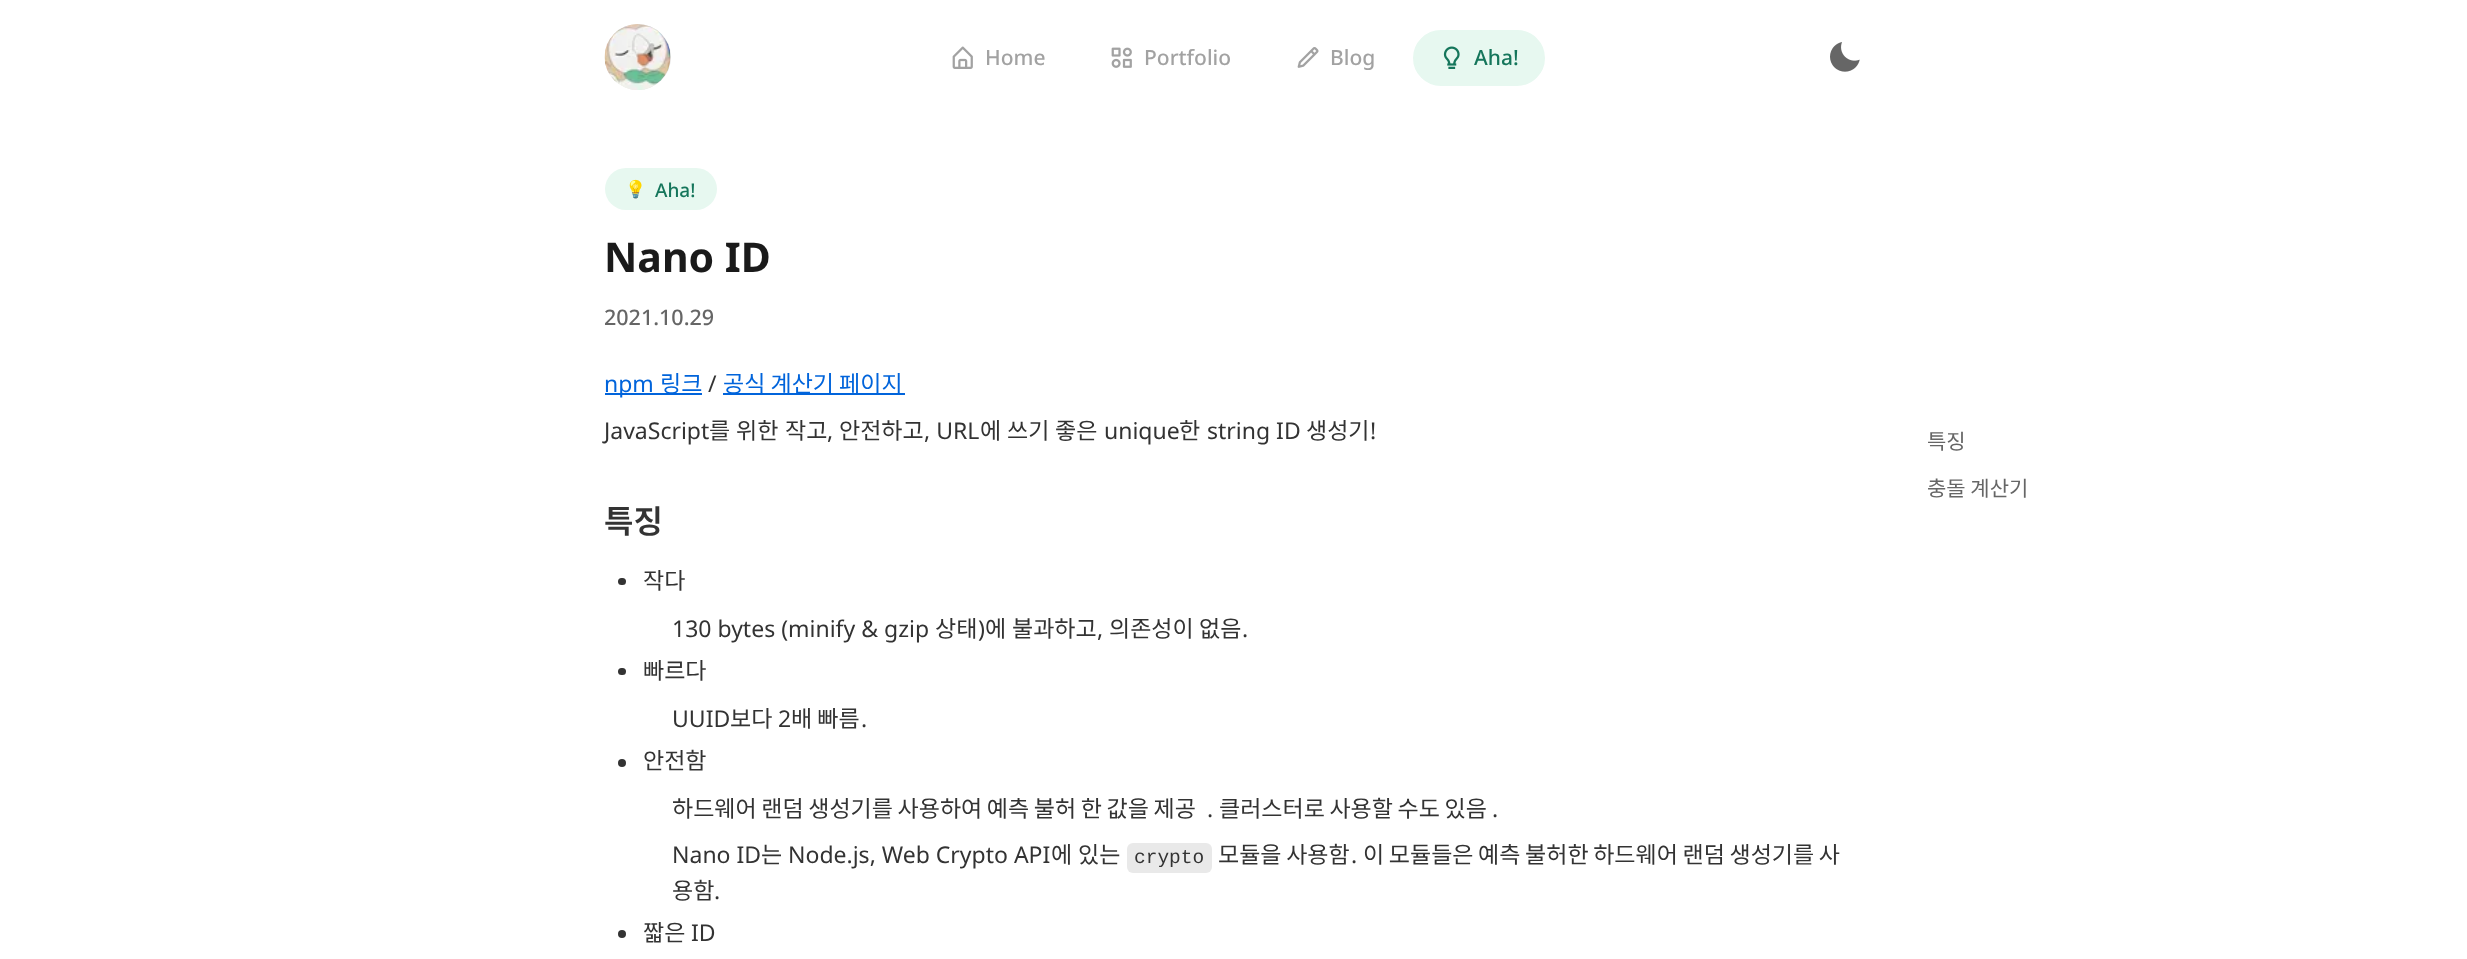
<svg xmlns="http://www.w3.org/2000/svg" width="2467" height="959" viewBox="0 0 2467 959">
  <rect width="100%" height="100%" fill="#ffffff"/>
  <circle cx="638" cy="57" r="33" fill="#e6e6e6"/>
  <image x="604" y="24" width="67" height="66" href="img1.png"/>
  <image x="952" y="46" width="21" height="23" href="img2.png"/>
  <text x="985" y="65" font-family="Noto Sans" font-size="21" font-weight="500" fill="#a2a2a2">Home</text>
  <image x="1111" y="47" width="21" height="21" href="img3.png"/>
  <text x="1144" y="65" font-family="Noto Sans" font-size="21" font-weight="500" fill="#a2a2a2">Portfolio</text>
  <image x="1297" y="47" width="22" height="21" href="img4.png"/>
  <text x="1330" y="65" font-family="Noto Sans" font-size="21" font-weight="500" fill="#a2a2a2">Blog</text>
  <rect x="1414" y="31" width="130" height="54" rx="27" fill="#e7f8f0" stroke="#e7f8f0" stroke-width="2"/>
  <image x="1443" y="46" width="17" height="23" href="img5.png"/>
  <text x="1474" y="65" font-family="Noto Sans" font-size="21" font-weight="500" fill="#15765b">Aha!</text>
  <image x="1830" y="42" width="30" height="30" href="img6.png"/>
  <rect x="605" y="168" width="112" height="42" rx="21" fill="#e7f8f0"/>
  <text x="625" y="195" font-family="Noto Color Emoji" font-size="17" fill="#15765b">💡</text>
  <text x="655" y="197" font-family="Noto Sans" font-size="19" font-weight="500" fill="#15765b">Aha!</text>
  <text x="604" y="272" font-family="Noto Sans" font-size="41" font-weight="bold" fill="#1a1a1a">Nano ID</text>
  <text x="604" y="325" font-family="Noto Sans" font-size="21.5" font-weight="500" fill="#666666">2021.10.29</text>
  <rect x="605" y="393" width="97" height="2" fill="#0164db"/>
  <text x="604" y="392" font-family="Noto Sans" font-size="23" fill="#0164db">npm</text>
  <text x="660" y="392" font-family="Noto Sans KR" font-size="23" fill="#0164db">링크</text>
  <text x="708" y="392" font-family="Noto Sans" font-size="23" fill="#333333">/</text>
  <rect x="723" y="393" width="182" height="2" fill="#0164db"/>
  <text x="723" y="392" font-family="Noto Sans KR" font-size="23" fill="#0164db">공식 계산기 페이지</text>
  <text x="604" y="439" font-family="Noto Sans" font-size="23" fill="#333333">JavaScript</text>
  <text x="709" y="439" font-family="Noto Sans KR" font-size="23" fill="#333333">를</text>
  <text x="736" y="439" font-family="Noto Sans KR" font-size="23" fill="#333333">위한</text>
  <text x="785" y="439" font-family="Noto Sans KR" font-size="23" fill="#333333">작고</text>
  <text x="827" y="439" font-family="Noto Sans" font-size="23" fill="#333333">,</text>
  <text x="839" y="439" font-family="Noto Sans KR" font-size="23" fill="#333333">안전하고</text>
  <text x="924" y="439" font-family="Noto Sans" font-size="23" fill="#333333">, URL</text>
  <text x="980" y="439" font-family="Noto Sans KR" font-size="23" fill="#333333">에</text>
  <text x="1007" y="439" font-family="Noto Sans KR" font-size="23" fill="#333333">쓰기</text>
  <text x="1055" y="439" font-family="Noto Sans KR" font-size="23" fill="#333333">좋은</text>
  <text x="1104" y="439" font-family="Noto Sans" font-size="23" fill="#333333">unique</text>
  <text x="1179" y="439" font-family="Noto Sans KR" font-size="23" fill="#333333">한</text>
  <text x="1207" y="439" font-family="Noto Sans" font-size="23" fill="#333333">string ID</text>
  <text x="1306" y="439" font-family="Noto Sans KR" font-size="23" fill="#333333">생성기</text>
  <text x="1370" y="439" font-family="Noto Sans" font-size="23" fill="#333333">!</text>
  <text x="604" y="533" font-family="Noto Sans KR" font-size="32" font-weight="600" fill="#333333">특징</text>
  <rect x="618" y="578" width="8" height="7" rx="3.5" fill="#333333"/>
  <text x="643" y="589" font-family="Noto Sans KR" font-size="23" fill="#333333">작다</text>
  <text x="672" y="637" font-family="Noto Sans" font-size="23" fill="#333333">130 bytes (minify &amp; gzip</text>
  <text x="935" y="637" font-family="Noto Sans KR" font-size="23" fill="#333333">상태</text>
  <text x="978" y="637" font-family="Noto Sans" font-size="23" fill="#333333">)</text>
  <text x="985" y="637" font-family="Noto Sans KR" font-size="23" fill="#333333">에</text>
  <text x="1012" y="637" font-family="Noto Sans KR" font-size="23" fill="#333333">불과하고</text>
  <text x="1097" y="637" font-family="Noto Sans" font-size="23" fill="#333333">,</text>
  <text x="1109" y="637" font-family="Noto Sans KR" font-size="23" fill="#333333">의존성이</text>
  <text x="1199" y="637" font-family="Noto Sans KR" font-size="23" fill="#333333">없음</text>
  <text x="1242" y="637" font-family="Noto Sans" font-size="23" fill="#333333">.</text>
  <rect x="618" y="668" width="8" height="7" rx="3.5" fill="#333333"/>
  <text x="643" y="679" font-family="Noto Sans KR" font-size="23" fill="#333333">빠르다</text>
  <text x="672" y="727" font-family="Noto Sans" font-size="23" fill="#333333">UUID</text>
  <text x="730" y="727" font-family="Noto Sans KR" font-size="23" fill="#333333">보다</text>
  <text x="778" y="727" font-family="Noto Sans" font-size="23" fill="#333333">2</text>
  <text x="791" y="727" font-family="Noto Sans KR" font-size="23" fill="#333333">배 빠름</text>
  <text x="861" y="727" font-family="Noto Sans" font-size="23" fill="#333333">.</text>
  <circle cx="622" cy="763" r="4" fill="#333333"/>
  <text x="643" y="769" font-family="Noto Sans KR" font-size="23" fill="#333333">안전함</text>
  <text x="672" y="817" word-spacing="-0.5" font-family="Noto Sans KR" font-size="23" fill="#333333">하드웨어 랜덤 생성기를 사용하여 예측 불허 한 값을 제공</text>
  <text x="1207" y="817" font-family="Noto Sans" font-size="23" fill="#333333">.</text>
  <text x="1219" y="817" word-spacing="-0.5" font-family="Noto Sans KR" font-size="23" fill="#333333">클러스터로 사용할 수도 있음</text>
  <text x="1492" y="817" font-family="Noto Sans" font-size="23" fill="#333333">.</text>
  <text x="672" y="863" font-family="Noto Sans" font-size="23" fill="#333333">Nano ID</text>
  <text x="761" y="863" font-family="Noto Sans KR" font-size="23" fill="#333333">는</text>
  <text x="788" y="863" font-family="Noto Sans" font-size="23" fill="#333333">Node.js, Web Crypto API</text>
  <text x="1051" y="863" font-family="Noto Sans KR" font-size="23" fill="#333333">에</text>
  <text x="1078" y="863" font-family="Noto Sans KR" font-size="23" fill="#333333">있는</text>
  <rect x="1127" y="843" width="85" height="30" rx="6" fill="#e9e9e9"/>
  <text x="1134" y="863" font-family="Liberation Mono" font-size="19.5" fill="#333333">crypto</text>
  <text x="1218" y="863" word-spacing="-0.5" font-family="Noto Sans KR" font-size="23" fill="#333333">모듈을 사용함</text>
  <text x="1351" y="863" font-family="Noto Sans" font-size="23" fill="#333333">.</text>
  <text x="1363" y="863" word-spacing="-0.5" font-family="Noto Sans KR" font-size="23" fill="#333333">이 모듈들은 예측 불허한 하드웨어 랜덤 생성기를 사</text>
  <text x="672" y="899" font-family="Noto Sans KR" font-size="23" fill="#333333">용함</text>
  <text x="714" y="899" font-family="Noto Sans" font-size="23" fill="#333333">.</text>
  <circle cx="622" cy="934" r="4" fill="#333333"/>
  <text x="643" y="941" font-family="Noto Sans KR" font-size="23" fill="#333333">짧은</text>
  <text x="691" y="941" font-family="Noto Sans" font-size="23" fill="#333333">ID</text>
  <text x="1927" y="449" font-family="Noto Sans KR" font-size="21" fill="#666666">특징</text>
  <text x="1927" y="496" font-family="Noto Sans KR" font-size="21" fill="#666666">충돌 계산기</text>
</svg>
